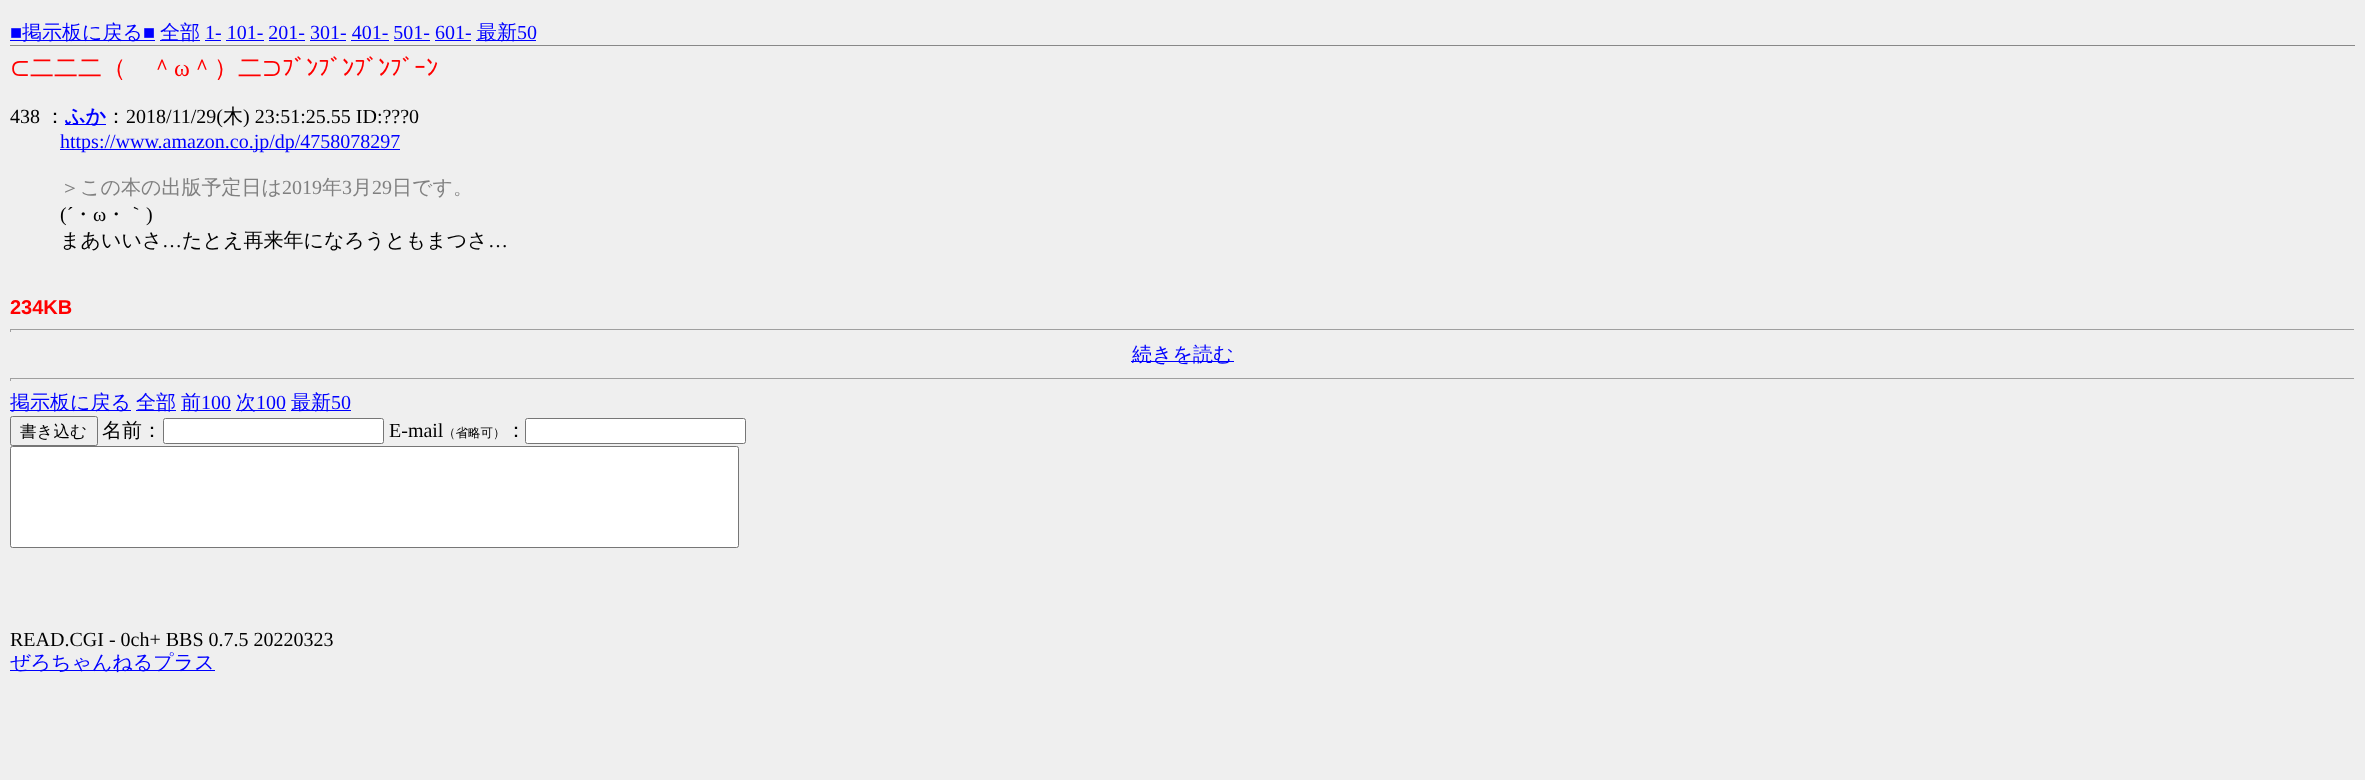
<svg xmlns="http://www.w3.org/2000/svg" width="2365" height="780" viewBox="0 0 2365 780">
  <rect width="100%" height="100%" fill="#efefef"/>
  <text x="10" y="39" font-family="Liberation Serif" font-size="20" fill="#0000ff">■</text>
  <rect x="10" y="40" width="145" height="1" fill="#0000ff"/>
  <text x="22" y="39" font-family="WenQuanYi Zen Hei" font-size="20" font-weight="500" fill="#0000ff">掲示板に戻る</text>
  <text x="143" y="39" font-family="Liberation Serif" font-size="20" fill="#0000ff">■</text>
  <rect x="160" y="40" width="40" height="1" fill="#0000ff"/>
  <text x="160" y="39" font-family="WenQuanYi Zen Hei" font-size="20" font-weight="500" fill="#0000ff">全部</text>
  <text x="205" y="39" font-family="Liberation Serif" font-size="20" fill="#0000ff">1- 101- 201- 301- 401- 501- 601-</text>
  <rect x="205" y="40" width="16" height="1" fill="#0000ff"/>
  <rect x="476" y="40" width="60" height="1" fill="#0000ff"/>
  <text x="477" y="39" font-family="WenQuanYi Zen Hei" font-size="20" font-weight="500" fill="#0000ff">最新</text>
  <text x="517" y="39" font-family="Liberation Serif" font-size="20" fill="#0000ff">50</text>
  <rect x="226" y="40" width="38" height="1" fill="#0000ff"/>
  <rect x="269" y="40" width="36" height="1" fill="#0000ff"/>
  <rect x="310" y="40" width="36" height="1" fill="#0000ff"/>
  <rect x="351" y="40" width="38" height="1" fill="#0000ff"/>
  <rect x="394" y="40" width="36" height="1" fill="#0000ff"/>
  <rect x="435" y="40" width="36" height="1" fill="#0000ff"/>
  <rect x="10" y="45" width="2345" height="1" fill="#888888"/>
  <text x="10" y="76" font-family="WenQuanYi Zen Hei" font-size="24" font-weight="500" fill="#ff0000">⊂二二二（　＾</text>
  <text x="174" y="76" font-family="Liberation Serif" font-size="24" fill="#ff0000">ω</text>
  <text x="190" y="76" font-family="WenQuanYi Zen Hei" font-size="24" font-weight="500" fill="#ff0000">＾）二⊃</text>
  <text x="282" y="76" font-family="IPAPGothic" font-size="24" fill="#ff0000">ﾌﾞﾝﾌﾞﾝﾌﾞﾝﾌﾞｰﾝ</text>
  <text x="10" y="123" font-family="Liberation Serif" font-size="20" fill="#000000">438</text>
  <text x="45" y="123" font-family="WenQuanYi Zen Hei" font-size="20" font-weight="500" fill="#000000">：</text>
  <rect x="65" y="124" width="41" height="1" fill="#0000ff"/>
  <text x="65" y="123" font-family="WenQuanYi Zen Hei" font-size="20" font-weight="bold" fill="#0000ff">ふか</text>
  <text x="106" y="123" font-family="WenQuanYi Zen Hei" font-size="20" font-weight="500" fill="#000000">：</text>
  <text x="126" y="123" font-family="Liberation Serif" font-size="20" fill="#000000">2018/11/29(</text>
  <text x="223" y="123" font-family="WenQuanYi Zen Hei" font-size="20" font-weight="500" fill="#000000">木</text>
  <text x="243" y="123" font-family="Liberation Serif" font-size="20" fill="#000000">) 23:51:25.55 ID:???0</text>
  <rect x="60" y="149" width="340" height="1" fill="#0000ff"/>
  <text x="60" y="148" font-family="Liberation Serif" font-size="20" fill="#0000ff">https://www.amazon.co.jp/dp/4758078297</text>
  <text x="60" y="194" font-family="WenQuanYi Zen Hei" font-size="20" font-weight="500" fill="#808080">＞この本の出版予定日は</text>
  <text x="282" y="194" font-family="Liberation Serif" font-size="20" fill="#808080">2019</text>
  <text x="322" y="194" font-family="WenQuanYi Zen Hei" font-size="20" font-weight="500" fill="#808080">年</text>
  <text x="342" y="194" font-family="Liberation Serif" font-size="20" fill="#808080">3</text>
  <text x="352" y="194" font-family="WenQuanYi Zen Hei" font-size="20" font-weight="500" fill="#808080">月</text>
  <text x="372" y="194" font-family="Liberation Serif" font-size="20" fill="#808080">29</text>
  <text x="392" y="194" font-family="WenQuanYi Zen Hei" font-size="20" font-weight="500" fill="#808080">日です。</text>
  <text x="60" y="221" font-family="Liberation Serif" font-size="20" fill="#000000">(´</text>
  <text x="73" y="221" font-family="WenQuanYi Zen Hei" font-size="20" font-weight="500" fill="#000000">・</text>
  <text x="93" y="221" font-family="Liberation Serif" font-size="20" fill="#000000">ω</text>
  <text x="106" y="221" font-family="WenQuanYi Zen Hei" font-size="20" font-weight="500" fill="#000000">・｀</text>
  <text x="146" y="221" font-family="Liberation Serif" font-size="20" fill="#000000">)</text>
  <text x="60" y="247" font-family="WenQuanYi Zen Hei" font-size="20" font-weight="500" fill="#000000">まあいいさ</text>
  <text x="162" y="247" font-family="Liberation Serif" font-size="20" fill="#000000">…</text>
  <text x="182" y="247" font-family="WenQuanYi Zen Hei" font-size="20" font-weight="500" fill="#000000">たとえ再来年になろうともまつさ</text>
  <text x="488" y="247" font-family="Liberation Serif" font-size="20" fill="#000000">…</text>
  <text x="10" y="314" font-family="Liberation Sans" font-size="20" font-weight="bold" fill="#ff0000">234KB</text>
  <rect x="10" y="329" width="2345" height="1" fill="#9f9f9f"/>
  <rect x="2354" y="329" width="1" height="3" fill="#eeeeee"/>
  <rect x="10" y="329" width="1" height="3" fill="#9f9f9f"/>
  <rect x="1131" y="361" width="103" height="1" fill="#0000ff"/>
  <text x="1132" y="361" font-family="WenQuanYi Zen Hei" font-size="20" font-weight="500" fill="#0000ff">続きを読む</text>
  <rect x="10" y="378" width="2345" height="1" fill="#9f9f9f"/>
  <rect x="2354" y="378" width="1" height="3" fill="#eeeeee"/>
  <rect x="10" y="378" width="1" height="3" fill="#9f9f9f"/>
  <rect x="10" y="410" width="121" height="1" fill="#0000ff"/>
  <text x="10" y="409" font-family="WenQuanYi Zen Hei" font-size="20" font-weight="500" fill="#0000ff">掲示板に戻る</text>
  <rect x="136" y="410" width="40" height="1" fill="#0000ff"/>
  <text x="136" y="409" font-family="WenQuanYi Zen Hei" font-size="20" font-weight="500" fill="#0000ff">全部</text>
  <rect x="181" y="410" width="50" height="1" fill="#0000ff"/>
  <text x="181" y="409" font-family="WenQuanYi Zen Hei" font-size="20" font-weight="500" fill="#0000ff">前</text>
  <text x="201" y="409" font-family="Liberation Serif" font-size="20" fill="#0000ff">100</text>
  <rect x="236" y="410" width="50" height="1" fill="#0000ff"/>
  <text x="236" y="409" font-family="WenQuanYi Zen Hei" font-size="20" font-weight="500" fill="#0000ff">次</text>
  <text x="256" y="409" font-family="Liberation Serif" font-size="20" fill="#0000ff">100</text>
  <rect x="291" y="410" width="60" height="1" fill="#0000ff"/>
  <text x="291" y="409" font-family="WenQuanYi Zen Hei" font-size="20" font-weight="500" fill="#0000ff">最新</text>
  <text x="331" y="409" font-family="Liberation Serif" font-size="20" fill="#0000ff">50</text>
  <rect x="10.5" y="416.5" width="87" height="29" rx="2" fill="none" stroke="#767676"/>
  <text x="20" y="437" font-family="WenQuanYi Zen Hei" font-size="16.5" font-weight="500" fill="#000000">書き込む</text>
  <text x="102" y="437" font-family="WenQuanYi Zen Hei" font-size="20" font-weight="500" fill="#000000">名前：</text>
  <rect x="163.5" y="418.5" width="220" height="25" rx="2" fill="#ffffff" stroke="#767676"/>
  <text x="389" y="437" font-family="Liberation Serif" font-size="20" fill="#000000">E-mail</text>
  <text x="443" y="437" font-family="WenQuanYi Zen Hei" font-size="12.5" font-weight="500" fill="#000000">（省略可）</text>
  <text x="506" y="437" font-family="WenQuanYi Zen Hei" font-size="20" font-weight="500" fill="#000000">：</text>
  <rect x="525.5" y="418.5" width="220" height="25" rx="2" fill="#ffffff" stroke="#767676"/>
  <rect x="10.5" y="446.5" width="728" height="101" rx="2" fill="#ffffff" stroke="#767676"/>
  <text x="10" y="646" font-family="Liberation Serif" font-size="20" fill="#000000">READ.CGI - 0ch+ BBS 0.7.5 20220323</text>
  <rect x="10" y="670" width="205" height="1" fill="#0000ff"/>
  <text x="10" y="669" font-family="WenQuanYi Zen Hei" font-size="20" font-weight="500" fill="#0000ff">ぜろちゃんねるプラス</text>
</svg>
